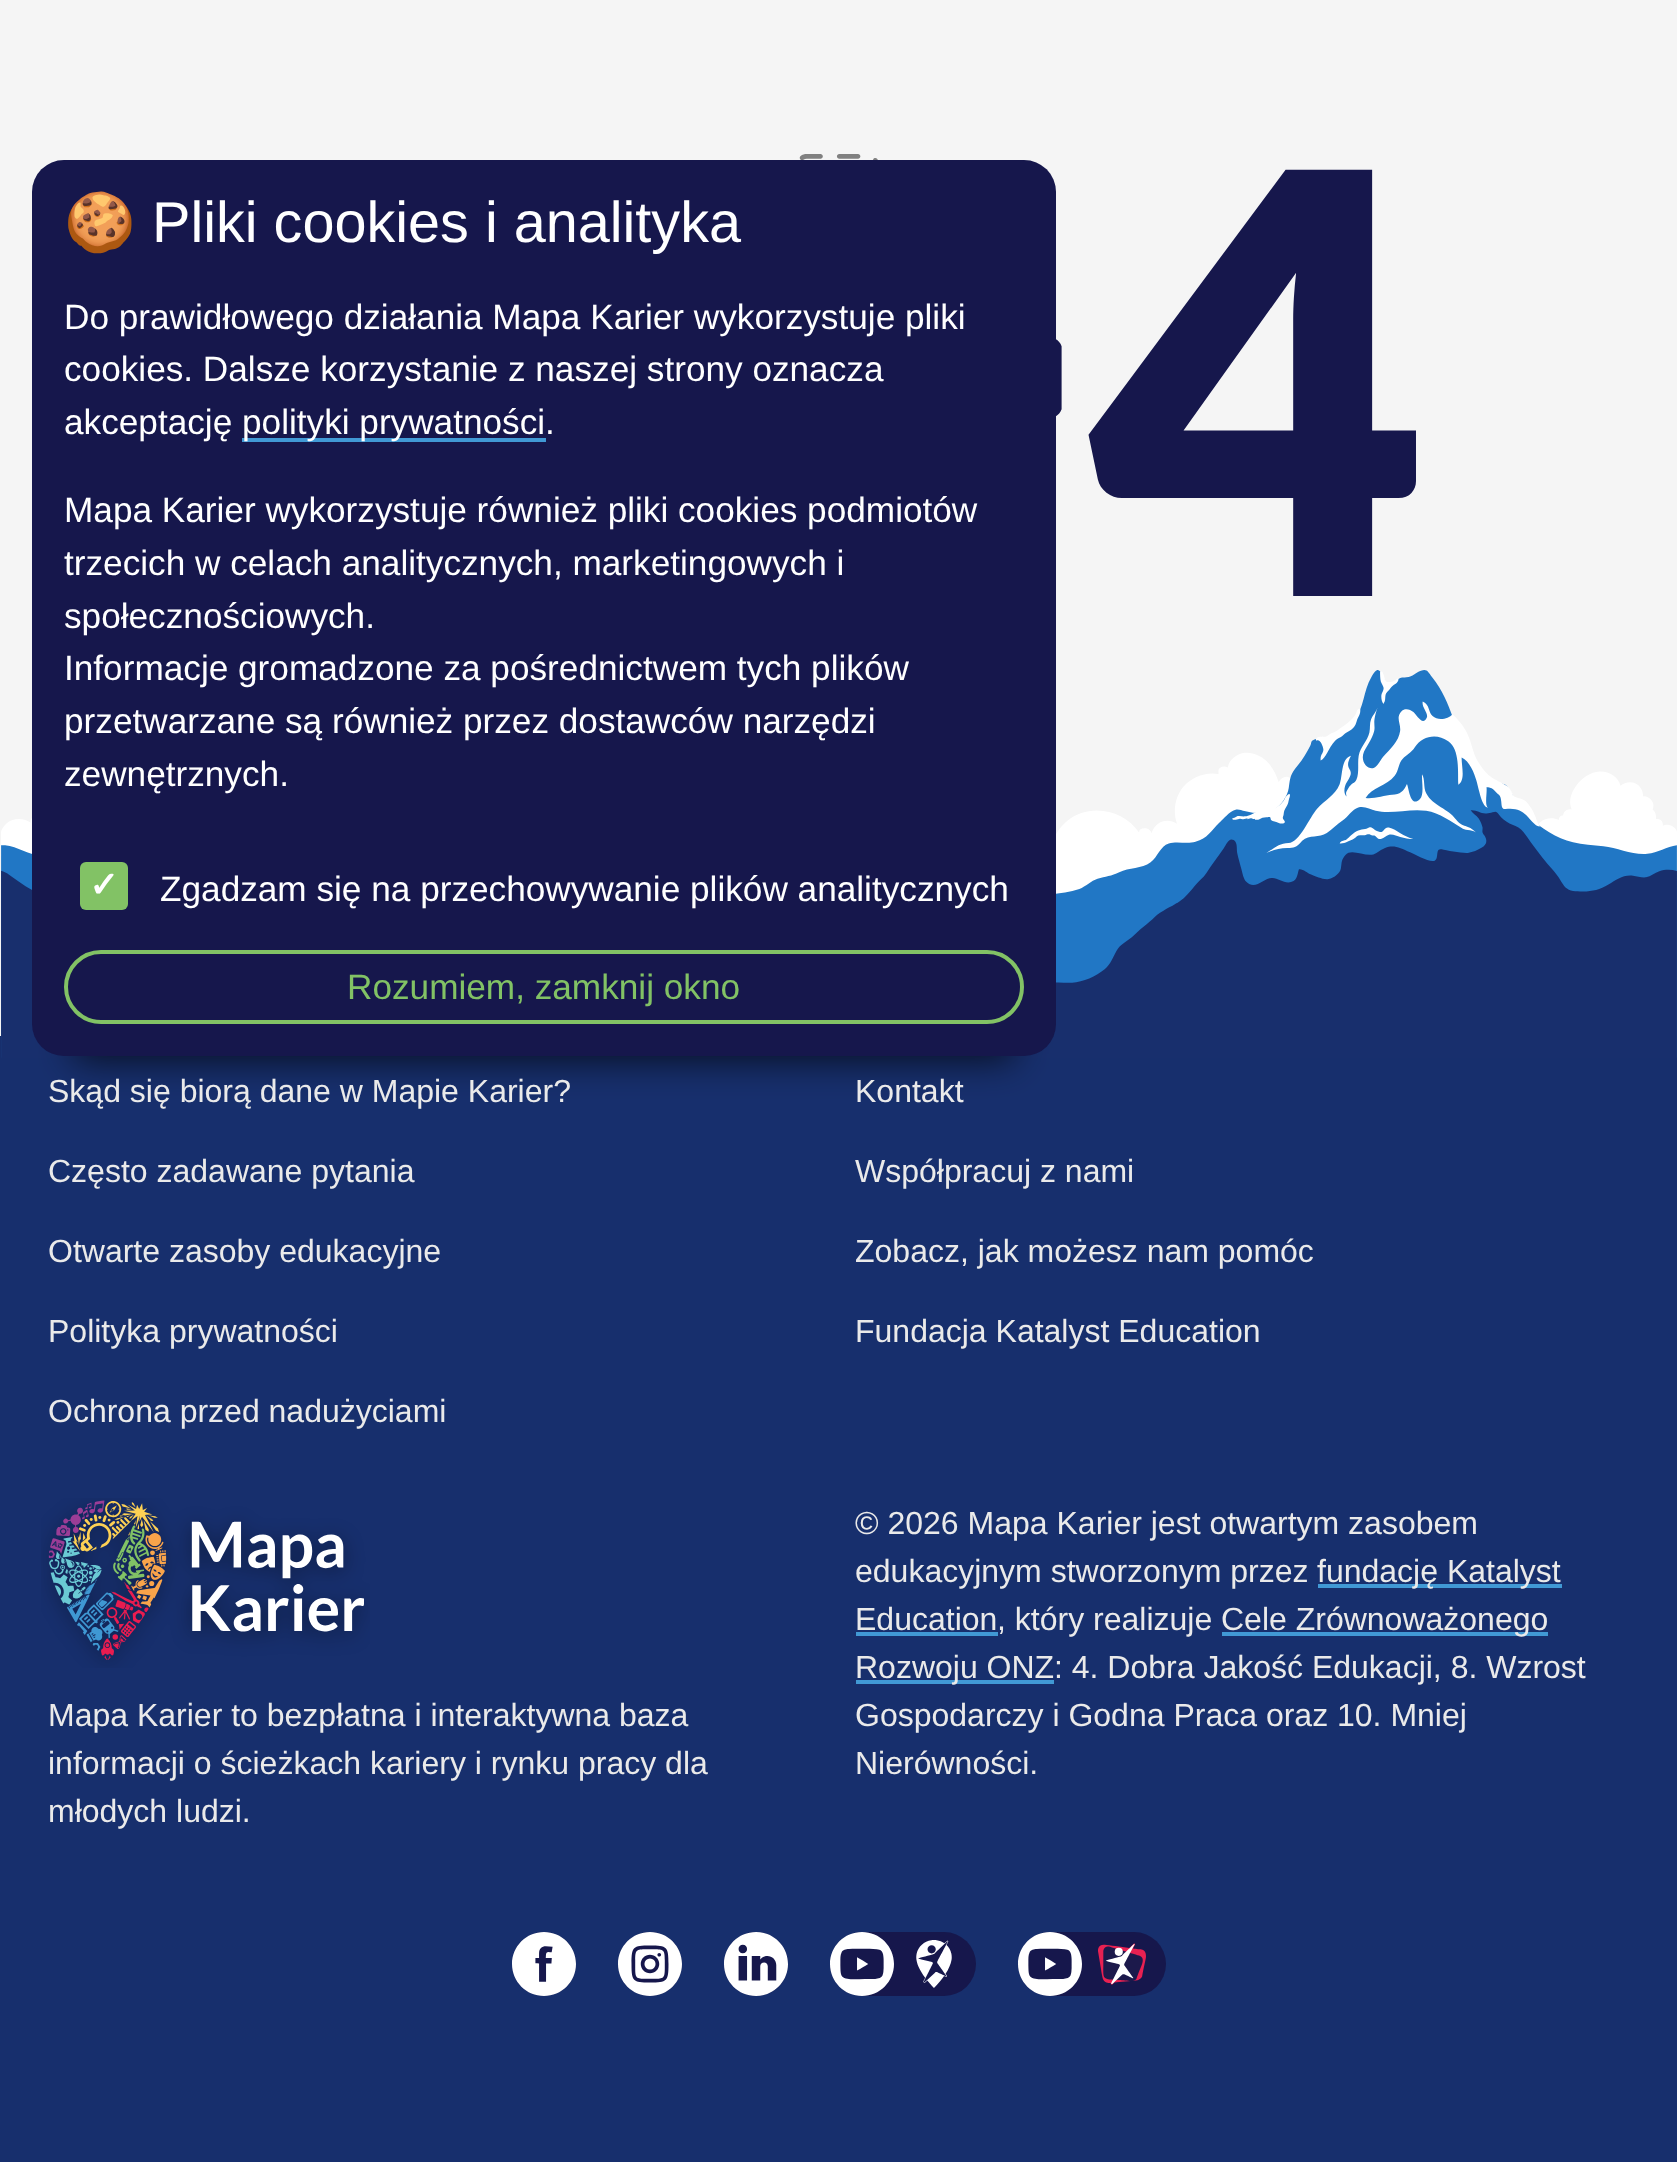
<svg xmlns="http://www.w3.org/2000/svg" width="1677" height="2162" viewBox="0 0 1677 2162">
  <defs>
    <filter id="blur1" x="-50%" y="-200%" width="200%" height="500%"><feGaussianBlur stdDeviation="18"/></filter>
    <linearGradient id="g1" gradientUnits="userSpaceOnUse" x1="394" y1="402" x2="394" y2="482"><stop offset="0" stop-color="#16174c"/><stop offset="0.45" stop-color="#16174c"/><stop offset="0.45" stop-color="#4199d5"/><stop offset="1" stop-color="#4199d5"/></linearGradient>
    <linearGradient id="g2" gradientUnits="userSpaceOnUse" x1="1440" y1="1554" x2="1440" y2="1622"><stop offset="0" stop-color="#172f6d"/><stop offset="0.44" stop-color="#172f6d"/><stop offset="0.44" stop-color="#4199d5"/><stop offset="1" stop-color="#4199d5"/></linearGradient>
    <linearGradient id="g3" gradientUnits="userSpaceOnUse" x1="927" y1="1602" x2="927" y2="1670"><stop offset="0" stop-color="#172f6d"/><stop offset="0.44" stop-color="#172f6d"/><stop offset="0.44" stop-color="#4199d5"/><stop offset="1" stop-color="#4199d5"/></linearGradient>
    <linearGradient id="g4" gradientUnits="userSpaceOnUse" x1="1385" y1="1602" x2="1385" y2="1670"><stop offset="0" stop-color="#172f6d"/><stop offset="0.44" stop-color="#172f6d"/><stop offset="0.44" stop-color="#4199d5"/><stop offset="1" stop-color="#4199d5"/></linearGradient>
    <linearGradient id="g5" gradientUnits="userSpaceOnUse" x1="955" y1="1650" x2="955" y2="1718"><stop offset="0" stop-color="#172f6d"/><stop offset="0.44" stop-color="#172f6d"/><stop offset="0.44" stop-color="#4199d5"/><stop offset="1" stop-color="#4199d5"/></linearGradient>
  </defs>
  <rect width="100%" height="100%" fill="#f5f5f5"/>
  <image x="799" y="154" width="617" height="442" href="img1.png"/>
  <rect x="0" y="1036" width="1677" height="1126" fill="#172f6d"/>
  <image x="1" y="670" width="1676" height="388" href="img2.png"/>
  <rect x="74" y="248" width="940" height="812" fill="#000000" fill-opacity="0.7" filter="url(#blur1)"/>
  <rect x="32" y="160" width="1024" height="896" rx="32" fill="#16174c"/>
  <text x="64" y="242" font-family="Noto Color Emoji" font-size="57.6" fill="#ffffff">🍪</text>
  <text x="152" y="242" font-family="Liberation Sans" font-size="57.6" fill="#ffffff">Pliki cookies i analityka</text>
  <text x="64" y="329" font-family="Liberation Sans" font-size="35.2" fill="#ffffff">Do prawidłowego działania Mapa Karier wykorzystuje pliki</text>
  <text x="64" y="381" font-family="Liberation Sans" font-size="35.2" fill="#ffffff">cookies. Dalsze korzystanie z naszej strony oznacza</text>
  <text x="64" y="434" font-family="Liberation Sans" font-size="35.2" fill="#ffffff">akceptację</text>
  <rect x="242" y="438" width="304" height="4" fill="url(#g1)"/>
  <text x="242" y="434" font-family="Liberation Sans" font-size="35.2" fill="#ffffff">polityki prywatności</text>
  <text x="545" y="434" font-family="Liberation Sans" font-size="35.2" fill="#ffffff">.</text>
  <text x="64" y="522" font-family="Liberation Sans" font-size="35.2" fill="#ffffff">Mapa Karier wykorzystuje również pliki cookies podmiotów</text>
  <text x="64" y="575" font-family="Liberation Sans" font-size="35.2" fill="#ffffff">trzecich w celach analitycznych, marketingowych i</text>
  <text x="64" y="628" font-family="Liberation Sans" font-size="35.2" fill="#ffffff">społecznościowych.</text>
  <text x="64" y="680" font-family="Liberation Sans" font-size="35.2" fill="#ffffff">Informacje gromadzone za pośrednictwem tych plików</text>
  <text x="64" y="733" font-family="Liberation Sans" font-size="35.2" fill="#ffffff">przetwarzane są również przez dostawców narzędzi</text>
  <text x="64" y="786" font-family="Liberation Sans" font-size="35.2" fill="#ffffff">zewnętrznych.</text>
  <rect x="80" y="862" width="48" height="48" rx="6" fill="#82c265"/>
  <text x="89" y="897" font-family="DejaVu Sans" font-size="35.2" font-weight="bold" fill="#ffffff">✓</text>
  <text x="160" y="901" font-family="Liberation Sans" font-size="35.2" fill="#ffffff">Zgadzam się na przechowywanie plików analitycznych</text>
  <rect x="66" y="952" width="956" height="70" rx="35" fill="none" stroke="#82c265" stroke-width="4"/>
  <text x="347" y="999" font-family="Liberation Sans" font-size="35.2" fill="#82c265">Rozumiem, zamknij okno</text>
  <text x="48" y="1102" font-family="Liberation Sans" font-size="32" fill="#eaeaea">Skąd się biorą dane w Mapie Karier?</text>
  <text x="48" y="1182" font-family="Liberation Sans" font-size="32" fill="#eaeaea">Często zadawane pytania</text>
  <text x="48" y="1262" font-family="Liberation Sans" font-size="32" fill="#eaeaea">Otwarte zasoby edukacyjne</text>
  <text x="48" y="1342" font-family="Liberation Sans" font-size="32" fill="#eaeaea">Polityka prywatności</text>
  <text x="48" y="1422" font-family="Liberation Sans" font-size="32" fill="#eaeaea">Ochrona przed nadużyciami</text>
  <text x="855" y="1102" font-family="Liberation Sans" font-size="32" fill="#eaeaea">Kontakt</text>
  <text x="855" y="1182" font-family="Liberation Sans" font-size="32" fill="#eaeaea">Współpracuj z nami</text>
  <text x="855" y="1262" font-family="Liberation Sans" font-size="32" fill="#eaeaea">Zobacz, jak możesz nam pomóc</text>
  <text x="855" y="1342" font-family="Liberation Sans" font-size="32" fill="#eaeaea">Fundacja Katalyst Education</text>
  <image x="41" y="1498" width="329" height="170" href="img3.png"/>
  <text x="48" y="1726" font-family="Liberation Sans" font-size="32" fill="#eaeaea">Mapa Karier to bezpłatna i interaktywna baza</text>
  <text x="48" y="1774" font-family="Liberation Sans" font-size="32" fill="#eaeaea">informacji o ścieżkach kariery i rynku pracy dla</text>
  <text x="48" y="1822" font-family="Liberation Sans" font-size="32" fill="#eaeaea">młodych ludzi.</text>
  <text x="855" y="1534" font-family="Liberation Sans" font-size="32" fill="#eaeaea">© 2026 Mapa Karier jest otwartym zasobem</text>
  <text x="855" y="1582" font-family="Liberation Sans" font-size="32" fill="#eaeaea">edukacyjnym stworzonym przez</text>
  <rect x="1318" y="1584" width="244" height="4" fill="url(#g2)"/>
  <text x="1317" y="1582" font-family="Liberation Sans" font-size="32" fill="#eaeaea">fundację Katalyst</text>
  <text x="855" y="1630" font-family="Liberation Sans" font-size="32" fill="#eaeaea">Education</text>
  <rect x="856" y="1632" width="142" height="4" fill="url(#g3)"/>
  <text x="997" y="1630" font-family="Liberation Sans" font-size="32" fill="#eaeaea">, który realizuje</text>
  <rect x="1222" y="1632" width="326" height="4" fill="url(#g4)"/>
  <text x="1221" y="1630" font-family="Liberation Sans" font-size="32" fill="#eaeaea">Cele Zrównoważonego</text>
  <rect x="856" y="1680" width="198" height="4" fill="url(#g5)"/>
  <text x="855" y="1678" font-family="Liberation Sans" font-size="32" fill="#eaeaea">Rozwoju ONZ</text>
  <text x="1054" y="1678" font-family="Liberation Sans" font-size="32" fill="#eaeaea">: 4. Dobra Jakość Edukacji, 8. Wzrost</text>
  <text x="855" y="1726" font-family="Liberation Sans" font-size="32" fill="#eaeaea">Gospodarczy i Godna Praca oraz 10. Mniej</text>
  <text x="855" y="1774" font-family="Liberation Sans" font-size="32" fill="#eaeaea">Nierówności.</text>
  <circle cx="544" cy="1964" r="32" fill="#16174c"/>
  <image x="512" y="1932" width="64" height="64" href="img4.png"/>
  <circle cx="650" cy="1964" r="32" fill="#16174c"/>
  <image x="618" y="1932" width="64" height="64" href="img5.png"/>
  <circle cx="756" cy="1964" r="32" fill="#16174c"/>
  <image x="724" y="1932" width="64" height="64" href="img6.png"/>
  <rect x="830" y="1932" width="146" height="64" rx="32" fill="#16174c"/>
  <image x="830" y="1932" width="64" height="64" href="img7.png"/>
  <image x="916" y="1940" width="36" height="48" href="img8.png"/>
  <rect x="1018" y="1932" width="148" height="64" rx="32" fill="#16174c"/>
  <image x="1018" y="1932" width="64" height="64" href="img7.png"/>
  <image x="1098" y="1943" width="48" height="42" href="img9.png"/>
</svg>
